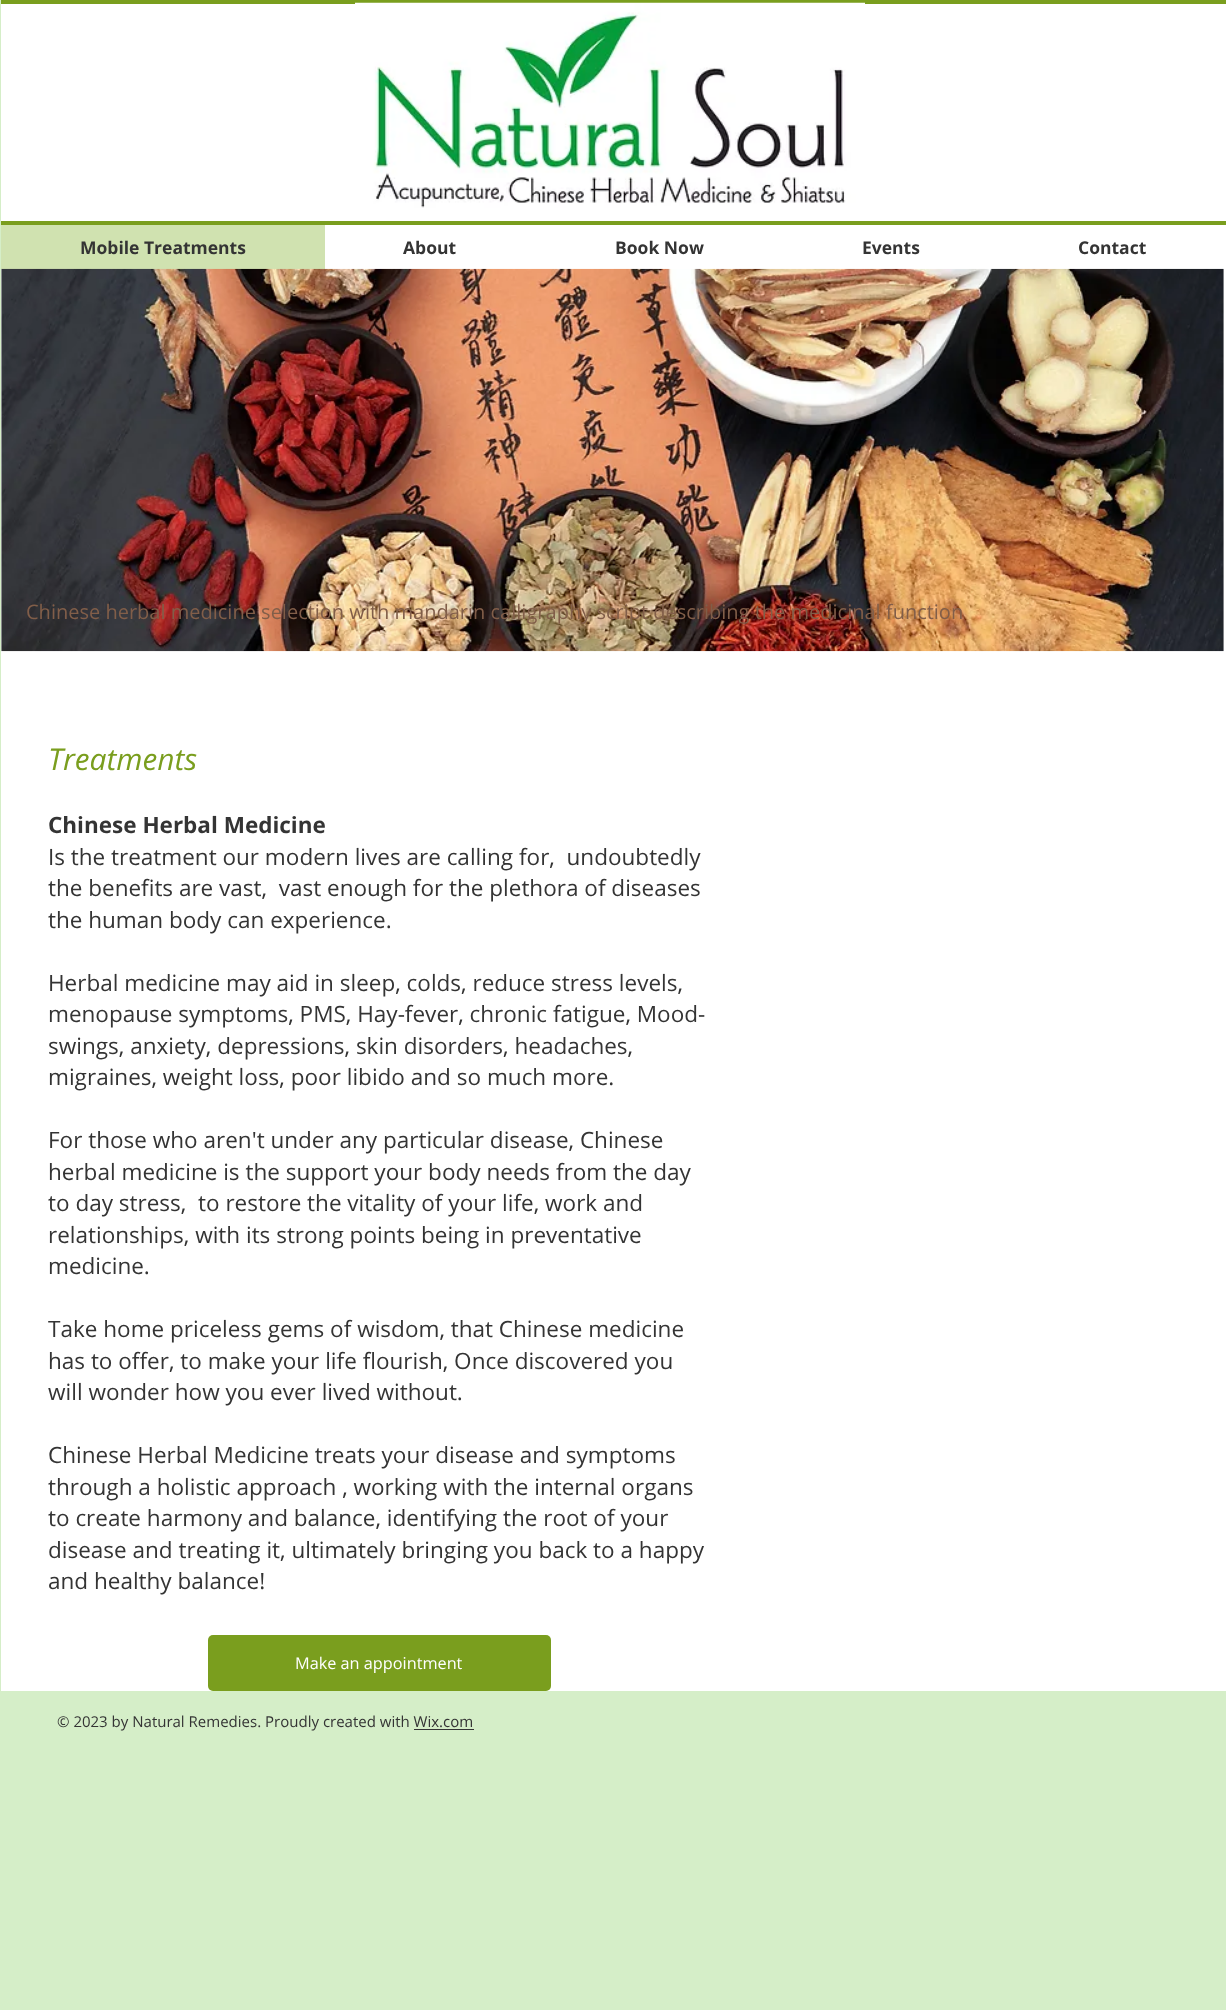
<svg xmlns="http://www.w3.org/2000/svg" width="1226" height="2010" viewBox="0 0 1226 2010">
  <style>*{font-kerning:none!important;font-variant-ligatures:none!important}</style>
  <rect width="100%" height="100%" fill="#d5eec8"/>
  <rect x="1" y="4" width="1225" height="1687" fill="#ffffff"/>
  <rect x="1" y="0" width="1225" height="4" fill="#7a9e1e"/>
  <image x="355" y="2" width="510" height="206" href="img1.png"/>
  <rect x="1" y="221" width="1225" height="4" fill="#7a9e1e"/>
  <rect x="1" y="225" width="324" height="44" fill="#d0e2b0"/>
  <text x="80" y="254" font-family="Open Sans" font-size="17.5" font-weight="bold" fill="#343434">Mobile Treatments</text>
  <text x="403" y="254" font-family="Open Sans" font-size="17.5" font-weight="bold" fill="#343434">About</text>
  <text x="615" y="254" font-family="Open Sans" font-size="17.5" font-weight="bold" fill="#343434">Book Now</text>
  <text x="862" y="254" font-family="Open Sans" font-size="17.5" font-weight="bold" fill="#343434">Events</text>
  <text x="1078" y="254" font-family="Open Sans" font-size="17.5" font-weight="bold" fill="#343434">Contact</text>
  <image x="1" y="268" width="1223" height="384" href="img2.png"/>
  <text x="26" y="619" font-family="Open Sans" font-size="20" fill="#815e49">Chinese herbal medicine selection with mandarin calligraphy script describing the medicinal function</text>
  <text x="48" y="770" font-family="Open Sans" font-size="30" font-style="italic" fill="#7a9e1e">Treatments</text>
  <text x="48" y="833" font-family="Open Sans" font-size="22.5" font-weight="bold" fill="#343434">Chinese Herbal Medicine</text>
  <text x="48" y="865" font-family="Open Sans" font-size="22.5" fill="#343434" xml:space="preserve">Is the treatment our modern lives are calling for,  undoubtedly</text>
  <text x="48" y="896" font-family="Open Sans" font-size="22.5" fill="#343434" xml:space="preserve">the benefits are vast,  vast enough for the plethora of diseases</text>
  <text x="48" y="928" font-family="Open Sans" font-size="22.5" fill="#343434">the human body can experience.</text>
  <text x="48" y="991" font-family="Open Sans" font-size="22.5" fill="#343434">Herbal medicine may aid in sleep, colds, reduce stress levels,</text>
  <text x="48" y="1022" font-family="Open Sans" font-size="22.5" fill="#343434">menopause symptoms, PMS, Hay-fever, chronic fatigue, Mood-</text>
  <text x="48" y="1054" font-family="Open Sans" font-size="22.5" fill="#343434">swings, anxiety, depressions, skin disorders, headaches,</text>
  <text x="48" y="1085" font-family="Open Sans" font-size="22.5" fill="#343434">migraines, weight loss, poor libido and so much more.</text>
  <text x="48" y="1148" font-family="Open Sans" font-size="22.5" fill="#343434">For those who aren't under any particular disease, Chinese</text>
  <text x="48" y="1180" font-family="Open Sans" font-size="22.5" fill="#343434">herbal medicine is the support your body needs from the day</text>
  <text x="48" y="1211" font-family="Open Sans" font-size="22.5" fill="#343434" xml:space="preserve">to day stress,  to restore the vitality of your life, work and</text>
  <text x="48" y="1243" font-family="Open Sans" font-size="22.5" fill="#343434">relationships, with its strong points being in preventative</text>
  <text x="48" y="1274" font-family="Open Sans" font-size="22.5" fill="#343434">medicine.</text>
  <text x="48" y="1337" font-family="Open Sans" font-size="22.5" fill="#343434">Take home priceless gems of wisdom, that Chinese medicine</text>
  <text x="48" y="1369" font-family="Open Sans" font-size="22.5" fill="#343434">has to offer, to make your life flourish, Once discovered you</text>
  <text x="48" y="1400" font-family="Open Sans" font-size="22.5" fill="#343434">will wonder how you ever lived without.</text>
  <text x="48" y="1463" font-family="Open Sans" font-size="22.5" fill="#343434">Chinese Herbal Medicine treats your disease and symptoms</text>
  <text x="48" y="1495" font-family="Open Sans" font-size="22.5" fill="#343434">through a holistic approach , working with the internal organs</text>
  <text x="48" y="1526" font-family="Open Sans" font-size="22.5" fill="#343434">to create harmony and balance, identifying the root of your</text>
  <text x="48" y="1558" font-family="Open Sans" font-size="22.5" fill="#343434">disease and treating it, ultimately bringing you back to a happy</text>
  <text x="48" y="1589" font-family="Open Sans" font-size="22.5" fill="#343434">and healthy balance!</text>
  <rect x="208" y="1635" width="343" height="56" rx="5" fill="#7a9e1e"/>
  <text x="295" y="1669" font-family="Open Sans" font-size="16.25" fill="#ffffff">Make an appointment</text>
  <text x="57" y="1727" font-family="Open Sans" font-size="15" fill="#343434">© 2023 by Natural Remedies. Proudly created with Wix.com</text>
  <rect x="414" y="1729" width="60" height="1" fill="#343434"/>
</svg>
